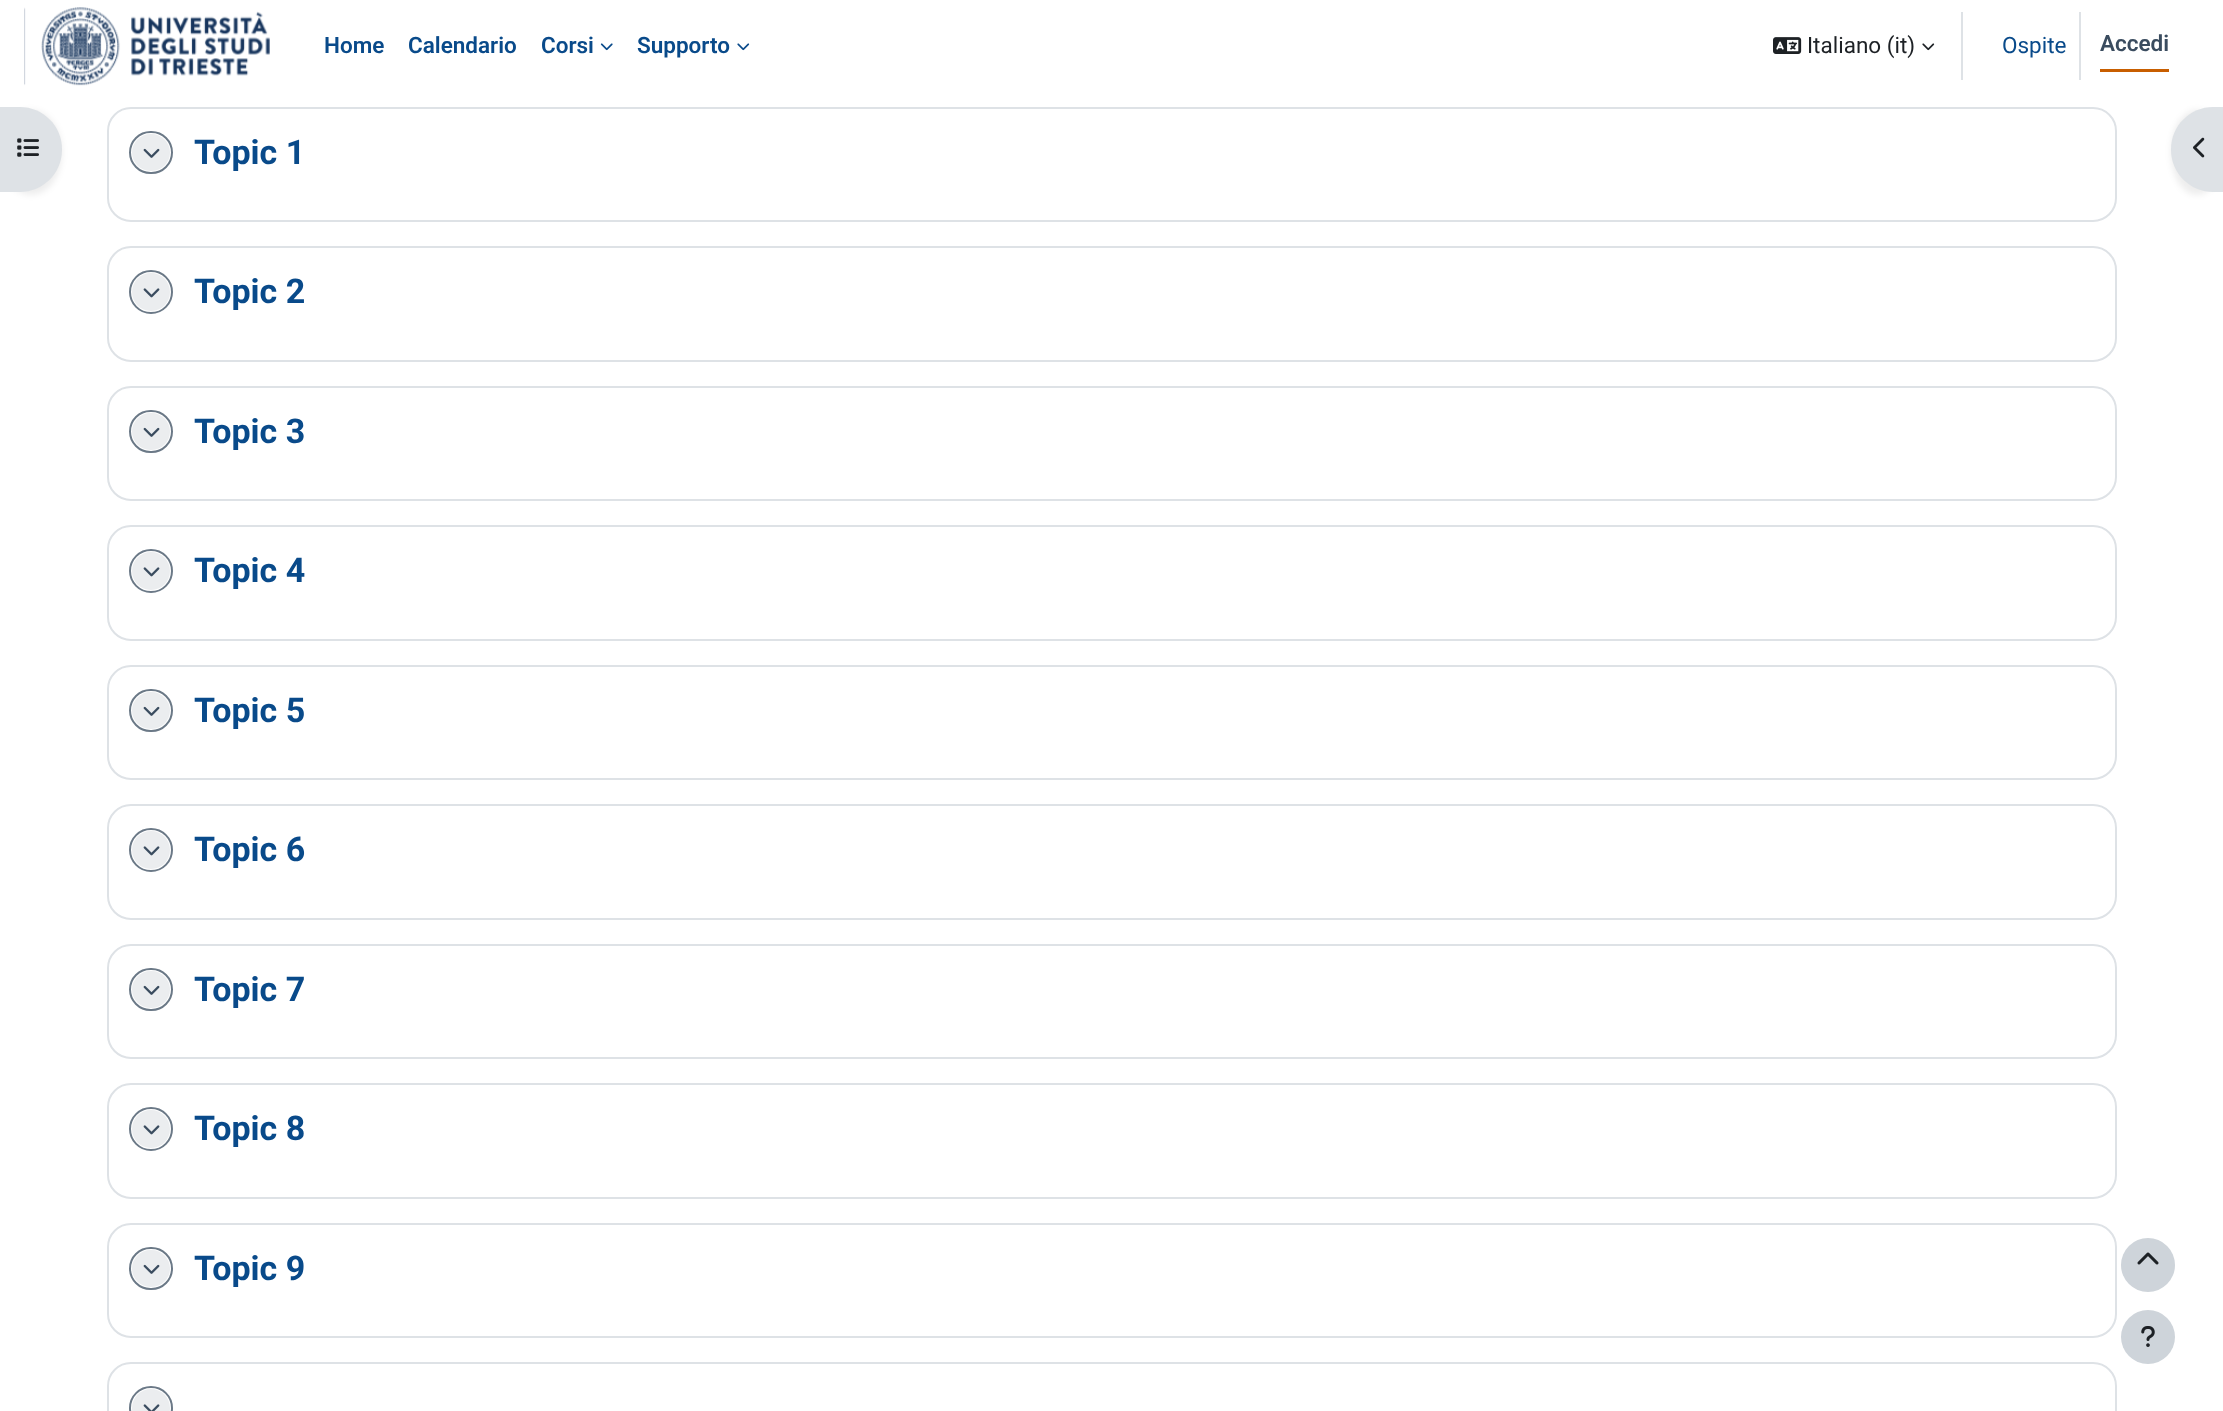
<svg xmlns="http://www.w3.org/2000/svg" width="2223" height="1411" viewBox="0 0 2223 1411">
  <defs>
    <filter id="blur1" x="-50%" y="-200%" width="200%" height="500%"><feGaussianBlur stdDeviation="3"/></filter>
  </defs>
  <rect width="100%" height="100%" fill="#ffffff"/>
  <image x="24" y="7" width="246" height="79" href="img1.png"/>
  <text x="324" y="53" font-family="Roboto" font-size="22.5" font-weight="600" fill="#094a8a">Home</text>
  <text x="408" y="53" font-family="Roboto" font-size="22.5" font-weight="600" fill="#094a8a">Calendario</text>
  <text x="541" y="53" font-family="Roboto" font-size="22.5" font-weight="600" fill="#094a8a">Corsi</text>
  <image x="600" y="43" width="13" height="8" href="img2.png"/>
  <text x="637" y="53" font-family="Roboto" font-size="22.5" font-weight="600" fill="#094a8a">Supporto</text>
  <image x="737" y="43" width="13" height="8" href="img3.png"/>
  <image x="1773" y="37" width="29" height="17" href="img4.png"/>
  <text x="1807" y="53" font-family="Roboto" font-size="22.5" fill="#1d2125">Italiano (it)</text>
  <image x="1922" y="43" width="13" height="8" href="img5.png"/>
  <rect x="1961" y="12" width="2" height="68" fill="#dee2e6"/>
  <text x="2002" y="53" font-family="Roboto" font-size="22.5" fill="#094a8a">Ospite</text>
  <rect x="2079" y="12" width="2" height="68" fill="#dee2e6"/>
  <rect x="2100" y="69" width="69" height="3" fill="#c85e00"/>
  <text x="2100" y="51" font-family="Roboto" font-size="22.5" font-weight="600" fill="#3a4c5f">Accedi</text>
  <rect x="0" y="110" width="62" height="85" rx="42" fill="#000000" fill-opacity="0.07" filter="url(#blur1)"/>
  <path d="M0 107H20C43 107 62 126 62 149V150C62 173 43 192 20 192H0Z" fill="#dee2e6"/>
  <image x="17" y="138" width="22" height="19" href="img6.png"/>
  <rect x="2171" y="110" width="52" height="85" rx="42" fill="#000000" fill-opacity="0.07" filter="url(#blur1)"/>
  <path d="M2213 107H2223V192H2213C2190 192 2171 173 2171 150V149C2171 126 2190 107 2213 107Z" fill="#dee2e6"/>
  <image x="2193" y="137" width="12" height="21" href="img7.png"/>
  <rect x="108" y="108" width="2008" height="113" rx="23" fill="none" stroke="#dee2e6" stroke-width="2"/>
  <rect x="130" y="132" width="42" height="41" rx="20.5" fill="none" stroke="#6b7987" stroke-width="2"/>
  <rect x="132" y="134" width="38" height="37" rx="18.5" fill="#ebedef"/>
  <image x="143" y="148" width="17" height="10" href="img8.png"/>
  <text x="194" y="164" font-family="Roboto" font-size="34" font-weight="bold" fill="#094a8a">Topic 1</text>
  <rect x="108" y="247" width="2008" height="114" rx="23" fill="none" stroke="#dee2e6" stroke-width="2"/>
  <circle cx="151" cy="292" r="21" fill="none" stroke="#6b7987" stroke-width="2"/>
  <circle cx="151" cy="292" r="19" fill="#ebedef"/>
  <image x="143" y="288" width="17" height="10" href="img9.png"/>
  <text x="194" y="303" font-family="Roboto" font-size="34" font-weight="bold" fill="#094a8a">Topic 2</text>
  <rect x="108" y="387" width="2008" height="113" rx="23" fill="none" stroke="#dee2e6" stroke-width="2"/>
  <rect x="130" y="411" width="42" height="41" rx="20.5" fill="none" stroke="#6b7987" stroke-width="2"/>
  <rect x="132" y="413" width="38" height="37" rx="18.5" fill="#ebedef"/>
  <image x="143" y="427" width="17" height="10" href="img8.png"/>
  <text x="194" y="443" font-family="Roboto" font-size="34" font-weight="bold" fill="#094a8a">Topic 3</text>
  <rect x="108" y="526" width="2008" height="114" rx="23" fill="none" stroke="#dee2e6" stroke-width="2"/>
  <circle cx="151" cy="571" r="21" fill="none" stroke="#6b7987" stroke-width="2"/>
  <circle cx="151" cy="571" r="19" fill="#ebedef"/>
  <image x="143" y="567" width="17" height="10" href="img9.png"/>
  <text x="194" y="582" font-family="Roboto" font-size="34" font-weight="bold" fill="#094a8a">Topic 4</text>
  <rect x="108" y="666" width="2008" height="113" rx="23" fill="none" stroke="#dee2e6" stroke-width="2"/>
  <rect x="130" y="690" width="42" height="41" rx="20.5" fill="none" stroke="#6b7987" stroke-width="2"/>
  <rect x="132" y="692" width="38" height="37" rx="18.5" fill="#ebedef"/>
  <image x="143" y="706" width="17" height="10" href="img8.png"/>
  <text x="194" y="722" font-family="Roboto" font-size="34" font-weight="bold" fill="#094a8a">Topic 5</text>
  <rect x="108" y="805" width="2008" height="114" rx="23" fill="none" stroke="#dee2e6" stroke-width="2"/>
  <circle cx="151" cy="850" r="21" fill="none" stroke="#6b7987" stroke-width="2"/>
  <circle cx="151" cy="850" r="19" fill="#ebedef"/>
  <image x="143" y="846" width="17" height="10" href="img9.png"/>
  <text x="194" y="861" font-family="Roboto" font-size="34" font-weight="bold" fill="#094a8a">Topic 6</text>
  <rect x="108" y="945" width="2008" height="113" rx="23" fill="none" stroke="#dee2e6" stroke-width="2"/>
  <rect x="130" y="969" width="42" height="41" rx="20.5" fill="none" stroke="#6b7987" stroke-width="2"/>
  <rect x="132" y="971" width="38" height="37" rx="18.5" fill="#ebedef"/>
  <image x="143" y="985" width="17" height="10" href="img8.png"/>
  <text x="194" y="1001" font-family="Roboto" font-size="34" font-weight="bold" fill="#094a8a">Topic 7</text>
  <rect x="108" y="1084" width="2008" height="114" rx="23" fill="none" stroke="#dee2e6" stroke-width="2"/>
  <circle cx="151" cy="1129" r="21" fill="none" stroke="#6b7987" stroke-width="2"/>
  <circle cx="151" cy="1129" r="19" fill="#ebedef"/>
  <image x="143" y="1125" width="17" height="10" href="img9.png"/>
  <text x="194" y="1140" font-family="Roboto" font-size="34" font-weight="bold" fill="#094a8a">Topic 8</text>
  <rect x="108" y="1224" width="2008" height="113" rx="23" fill="none" stroke="#dee2e6" stroke-width="2"/>
  <rect x="130" y="1248" width="42" height="41" rx="20.5" fill="none" stroke="#6b7987" stroke-width="2"/>
  <rect x="132" y="1250" width="38" height="37" rx="18.5" fill="#ebedef"/>
  <image x="143" y="1264" width="17" height="10" href="img8.png"/>
  <text x="194" y="1280" font-family="Roboto" font-size="34" font-weight="bold" fill="#094a8a">Topic 9</text>
  <rect x="108" y="1363" width="2008" height="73" rx="23" fill="none" stroke="#dee2e6" stroke-width="2"/>
  <circle cx="151" cy="1408" r="21" fill="none" stroke="#6b7987" stroke-width="2"/>
  <circle cx="151" cy="1408" r="19" fill="#ebedef"/>
  <image x="143" y="1404" width="17" height="7" href="img10.png"/>
  <circle cx="2148" cy="1265" r="27" fill="#ced4da"/>
  <image x="2137" y="1252" width="22" height="13" href="img11.png"/>
  <circle cx="2148" cy="1337" r="27" fill="#ced4da"/>
  <image x="2141" y="1326" width="14" height="21" href="img12.png"/>
</svg>
